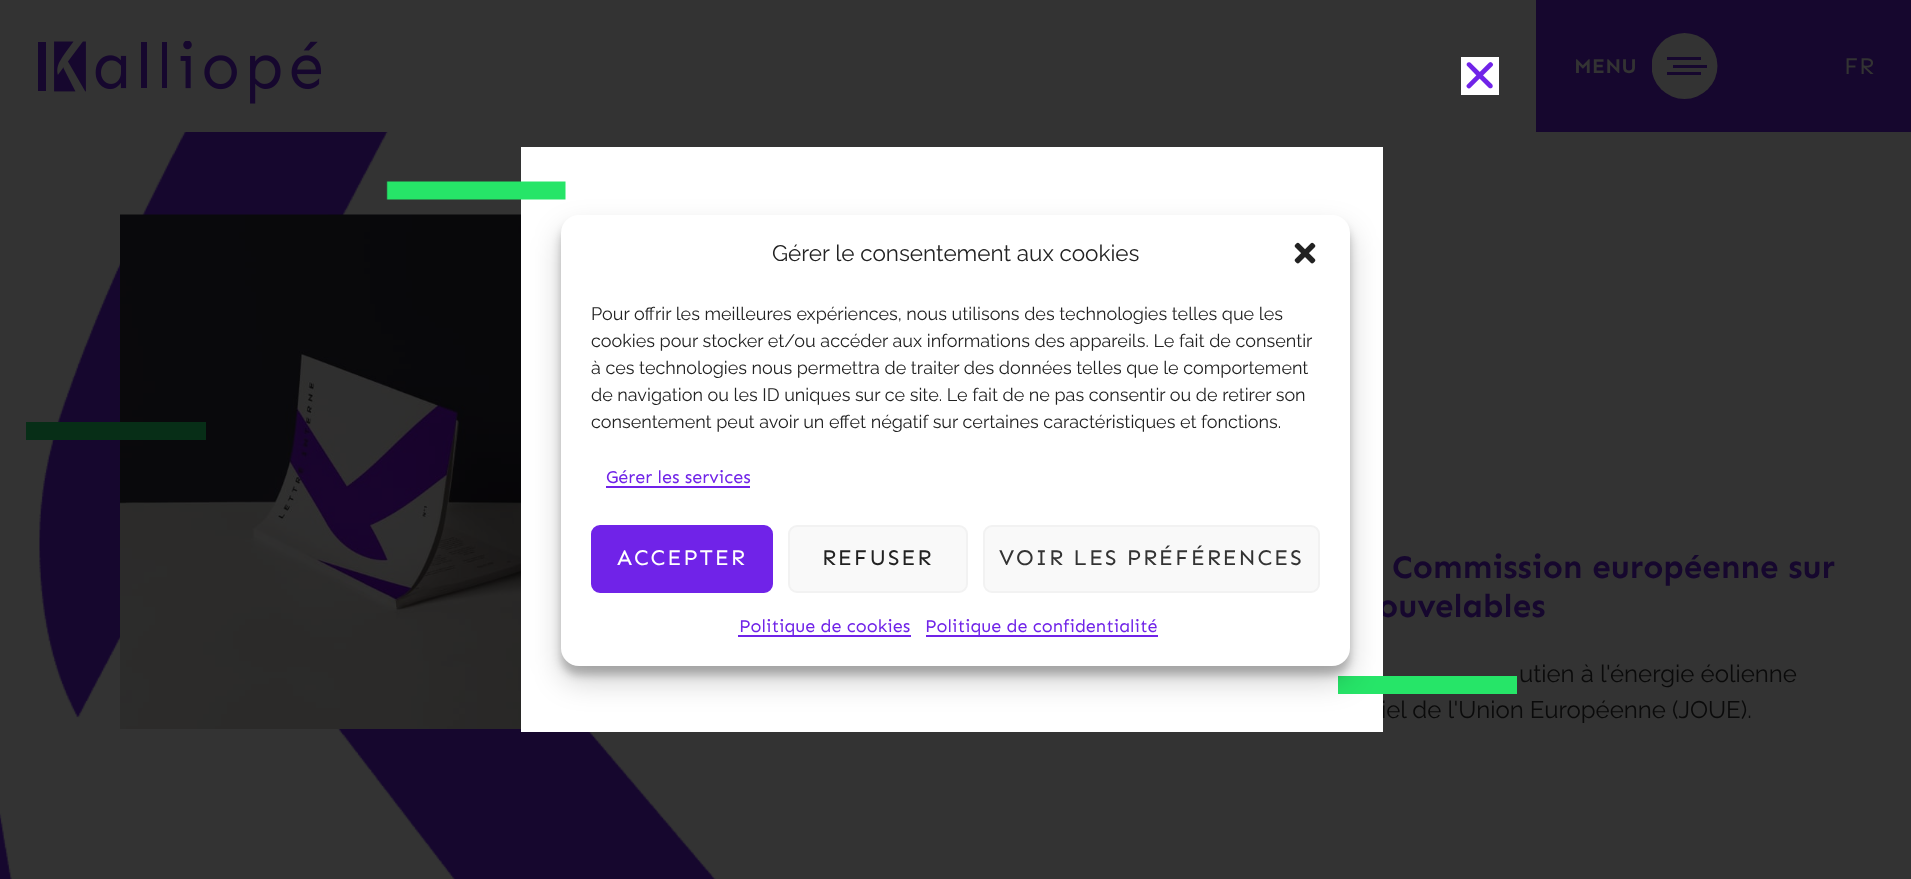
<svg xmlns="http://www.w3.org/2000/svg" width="1911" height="879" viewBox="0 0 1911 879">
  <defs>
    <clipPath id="clip1"><rect x="1652" y="33" width="66" height="66"/></clipPath>
    <filter id="blur1" x="-50%" y="-200%" width="200%" height="500%"><feGaussianBlur stdDeviation="4.5"/></filter>
    <filter id="blur2" x="-50%" y="-200%" width="200%" height="500%"><feGaussianBlur stdDeviation="15"/></filter>
  </defs>
  <rect width="100%" height="100%" fill="#333333"/>
  <image x="0" y="132" width="716" height="747" href="img1.png"/>
  <rect x="1461" y="57" width="38" height="38" fill="#ffffff"/>
  <image x="1466" y="62" width="28" height="27" href="img2.png"/>
  <text x="1378" y="617" font-family="Sen" font-size="33" font-weight="bold" fill="#16072e">ouvelables</text>
  <text x="1381" y="718" font-family="Raleway" font-size="24" font-weight="100" fill="#0a0a0a">iel de l'Union Européenne (JOUE).</text>
  <rect x="521" y="147" width="862" height="585" fill="#ffffff"/>
  <image x="386" y="181" width="180" height="19" href="img3.png"/>
  <rect x="1338" y="676" width="179" height="18" fill="#26e568"/>
  <image x="38" y="41" width="283" height="63" href="img4.png"/>
  <rect x="1536" y="0" width="375" height="132" fill="#16072e"/>
  <text x="1574" y="73" font-family="Sen" font-size="21" font-weight="bold" fill="#333333">MENU</text>
  <g clip-path="url(#clip1)">
    <circle cx="1684.5" cy="66" r="33" fill="#333333"/>
  </g>
  <rect x="1667" y="57" width="34" height="3" fill="#16072e"/>
  <rect x="1673" y="65" width="34" height="3" fill="#16072e"/>
  <rect x="1667" y="72" width="34" height="3" fill="#16072e"/>
  <text x="1844" y="74" font-family="Sen" font-size="24" fill="#333333">FR</text>
  <rect x="561" y="224" width="789" height="451" rx="18" fill="#000000" fill-opacity="0.23" filter="url(#blur1)"/>
  <image x="120" y="214" width="401" height="515" href="img6.png"/>
  <rect x="561" y="230" width="789" height="451" rx="18" fill="#000000" fill-opacity="0.19" filter="url(#blur2)"/>
  <rect x="561" y="215" width="789" height="451" rx="18" fill="#ffffff"/>
  <text x="772" y="261" font-family="Raleway" font-size="22.5" font-weight="100" fill="#222222">Gérer le consentement aux cookies</text>
  <image x="1294" y="242" width="22" height="22" href="img5.png"/>
  <text x="591" y="320" font-family="Raleway" font-size="18" font-weight="100" fill="#222222">Pour offrir les meilleures expériences, nous utilisons des technologies telles que les</text>
  <text x="591" y="347" font-family="Raleway" font-size="18" font-weight="100" fill="#222222">cookies pour stocker et/ou accéder aux informations des appareils. Le fait de consentir</text>
  <text x="591" y="374" font-family="Raleway" font-size="18" font-weight="100" fill="#222222">à ces technologies nous permettra de traiter des données telles que le comportement</text>
  <text x="591" y="401" font-family="Raleway" font-size="18" font-weight="100" fill="#222222">de navigation ou les ID uniques sur ce site. Le fait de ne pas consentir ou de retirer son</text>
  <text x="591" y="428" font-family="Raleway" font-size="18" font-weight="100" fill="#222222">consentement peut avoir un effet négatif sur certaines caractéristiques et fonctions.</text>
  <text x="606" y="483" font-family="Sen" font-size="18" fill="#7023e8">Gérer les services</text>
  <rect x="606" y="486" width="144" height="2" fill="#7023e8"/>
  <rect x="592" y="526" width="180" height="66" rx="8" fill="#7023e8" stroke="#7023e8" stroke-width="2"/>
  <text x="617" y="565" font-family="Sen" font-size="22.5" letter-spacing="1.8" fill="#ffffff">ACCEPTER</text>
  <rect x="789" y="526" width="178" height="66" rx="8" fill="#f9f9f9" stroke="#f2f2f2" stroke-width="2"/>
  <text x="822" y="565" font-family="Sen" font-size="22.5" letter-spacing="1.8" fill="#222222">REFUSER</text>
  <rect x="984" y="526" width="335" height="66" rx="8" fill="#f9f9f9" stroke="#f2f2f2" stroke-width="2"/>
  <text x="999" y="565" font-family="Sen" font-size="22.5" letter-spacing="1.8" fill="#333333">VOIR LES PRÉFÉRENCES</text>
  <rect x="738" y="635" width="173" height="2" fill="#7023e8"/>
  <text x="739" y="632" font-family="Sen" font-size="18" fill="#7023e8">Politique de cookies</text>
  <rect x="926" y="635" width="232" height="2" fill="#7023e8"/>
  <text x="925" y="632" font-family="Sen" font-size="18" fill="#7023e8">Politique de confidentialité</text>
  <rect x="26" y="422" width="180" height="18" fill="#072e17"/>
  <text x="1392" y="578" font-family="Sen" font-size="33" font-weight="bold" fill="#16072e">Commission européenne sur</text>
  <text x="1519" y="682" font-family="Raleway" font-size="24" font-weight="100" fill="#0a0a0a">utien à l'énergie éolienne</text>
</svg>
